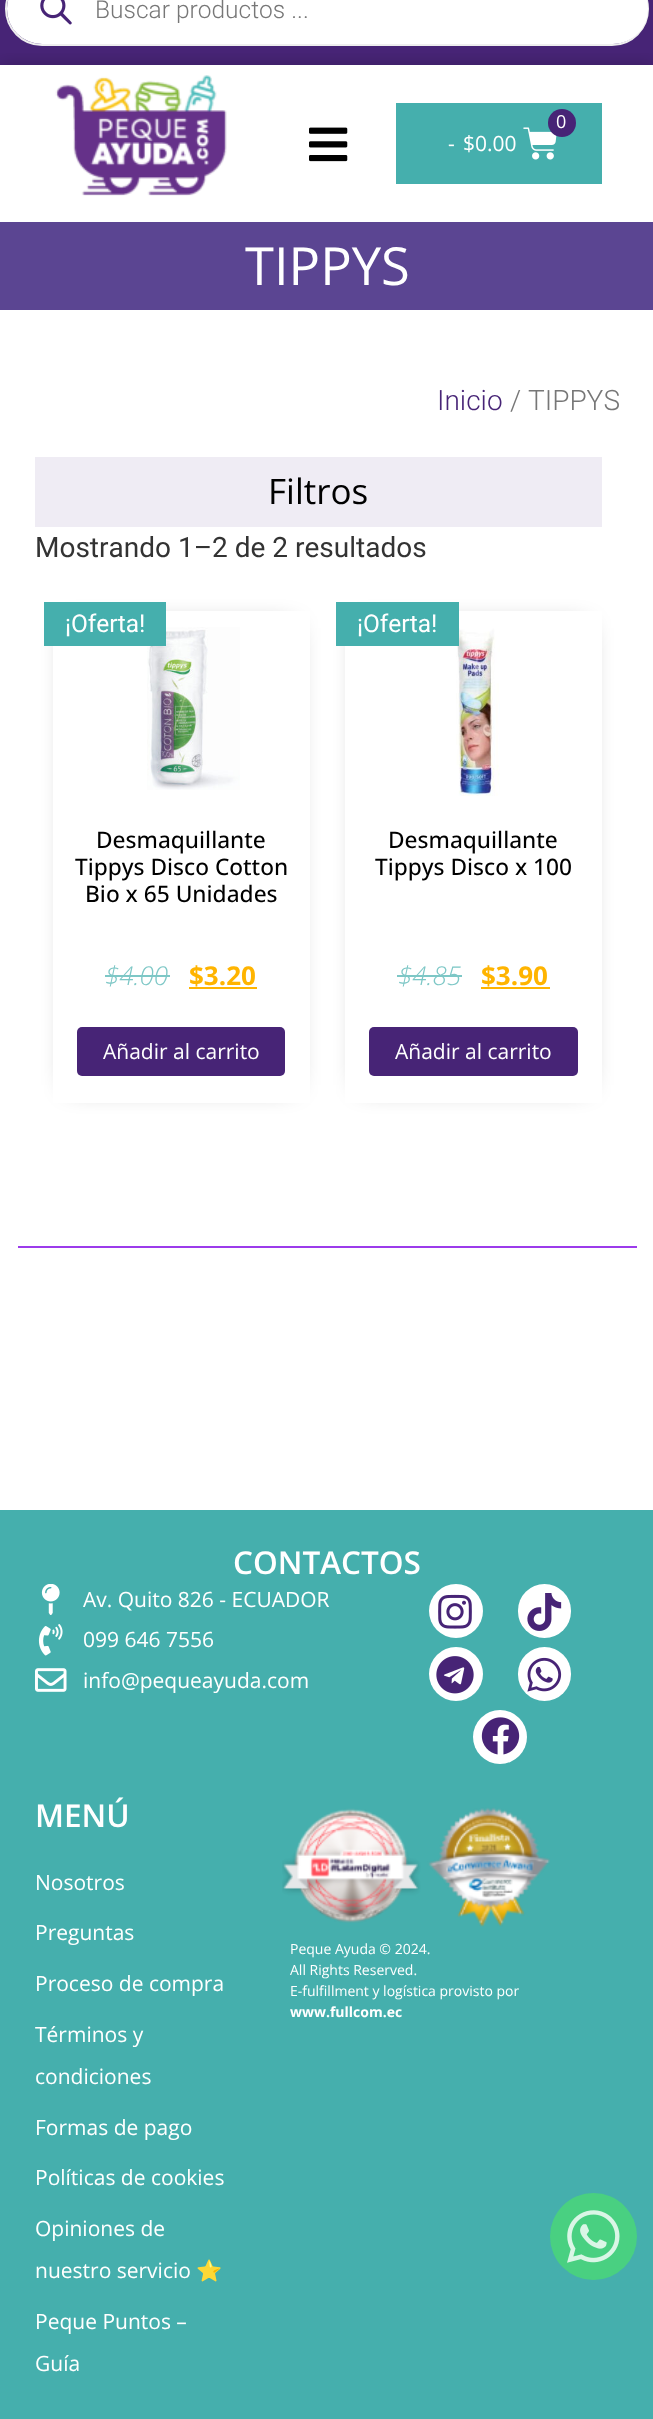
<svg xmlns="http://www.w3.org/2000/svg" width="653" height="2419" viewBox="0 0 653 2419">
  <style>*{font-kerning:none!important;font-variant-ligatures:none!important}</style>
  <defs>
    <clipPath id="clip1"><rect x="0" y="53" width="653" height="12"/></clipPath>
    <filter id="blur1" x="-50%" y="-200%" width="200%" height="500%"><feGaussianBlur stdDeviation="9"/></filter>
    <filter id="blur2" x="-50%" y="-200%" width="200%" height="500%"><feGaussianBlur stdDeviation="13"/></filter>
  </defs>
  <rect width="100%" height="100%" fill="#ffffff"/>
  <rect x="0" y="0" width="653" height="65" fill="#472476"/>
  <rect x="6" y="-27" width="642" height="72" rx="36" fill="none" stroke="#eeeeee" stroke-width="2"/>
  <rect x="7" y="-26" width="641" height="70" rx="35" fill="#ffffff"/>
  <image x="40" y="0" width="32" height="25" href="img1.png"/>
  <text x="95" y="18" font-family="Roboto" font-size="24.5" font-weight="300" fill="#777777">Buscar productos ...</text>
  <g clip-path="url(#clip1)">
    <rect x="0" y="65" width="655" height="157" fill="#000000" fill-opacity="0.2" filter="url(#blur1)"/>
  </g>
  <image x="55" y="75" width="172" height="121" href="img2.png"/>
  <image x="309" y="127" width="39" height="35" href="img3.png"/>
  <rect x="396" y="103" width="206" height="81" fill="#45afad"/>
  <image x="523" y="127" width="34" height="33" href="img4.png"/>
  <circle cx="562" cy="123" r="14" fill="#472476"/>
  <text x="556" y="128" font-family="Open Sans" font-size="18" fill="#ffffff">0</text>
  <text x="448" y="151" font-family="Open Sans" font-size="21" fill="#ffffff">-</text>
  <text x="463" y="151" font-family="Open Sans" font-size="21" fill="#ffffff">$0.00</text>
  <rect x="0" y="222" width="653" height="88" fill="#5b4592"/>
  <text x="245" y="285" font-family="Open Sans" font-size="52.5" fill="#ffffff">TIPPYS</text>
  <text x="437" y="410" font-family="Roboto" font-size="28" font-weight="300" fill="#472476">Inicio</text>
  <text x="510" y="410" font-family="Roboto" font-size="28" font-weight="300" fill="#777777">/ TIPPYS</text>
  <rect x="35" y="457" width="567" height="70" fill="#efecf4"/>
  <text x="268" y="504" font-family="Open Sans" font-size="35" fill="#000000">Filtros</text>
  <text x="35" y="557" font-family="Roboto" font-size="28" fill="#333333">Mostrando 1–2 de 2 resultados</text>
  <rect x="70" y="628" width="222" height="457" fill="#000000" fill-opacity="0.5" filter="url(#blur2)"/>
  <rect x="53" y="611" width="257" height="492" fill="#ffffff"/>
  <image x="147" y="627" width="93" height="163" href="img5.png"/>
  <rect x="44" y="602" width="122" height="44" fill="#45afad"/>
  <text x="65" y="632" font-family="Roboto" font-size="24.5" fill="#ffffff">¡Oferta!</text>
  <text x="96" y="848" font-family="Open Sans" font-size="22.75" font-weight="500" fill="#000000">Desmaquillante</text>
  <text x="75" y="875" font-family="Open Sans" font-size="22.75" font-weight="500" fill="#000000">Tippys Disco Cotton</text>
  <text x="85" y="902" font-family="Open Sans" font-size="22.75" font-weight="500" fill="#000000">Bio x 65 Unidades</text>
  <text x="105" y="985" font-family="Open Sans" font-size="26" font-weight="300" font-style="italic" fill="#7dc7c6">$4.00</text>
  <rect x="105" y="975" width="65" height="2" fill="#7dc7c6"/>
  <text x="189" y="985" font-family="Open Sans" font-size="26" font-weight="bold" fill="#ffb400">$3.20</text>
  <rect x="189" y="987" width="68" height="2" fill="#ffb400"/>
  <rect x="77" y="1027" width="208" height="49" rx="5" fill="#472476"/>
  <text x="103" y="1059" font-family="Open Sans" font-size="21" fill="#ffffff">Añadir al carrito</text>
  <rect x="362" y="628" width="223" height="457" fill="#000000" fill-opacity="0.5" filter="url(#blur2)"/>
  <rect x="345" y="611" width="257" height="492" fill="#ffffff"/>
  <image x="456" y="628" width="44" height="168" href="img6.png"/>
  <rect x="336" y="602" width="123" height="44" fill="#45afad"/>
  <text x="357" y="632" font-family="Roboto" font-size="24.5" fill="#ffffff">¡Oferta!</text>
  <text x="388" y="848" font-family="Open Sans" font-size="22.75" font-weight="500" fill="#000000">Desmaquillante</text>
  <text x="375" y="875" font-family="Open Sans" font-size="22.75" font-weight="500" fill="#000000">Tippys Disco x 100</text>
  <text x="398" y="985" font-family="Open Sans" font-size="26" font-weight="300" font-style="italic" fill="#7dc7c6">$4.85</text>
  <rect x="397" y="975" width="65" height="2" fill="#7dc7c6"/>
  <text x="481" y="985" font-family="Open Sans" font-size="26" font-weight="bold" fill="#ffb400">$3.90</text>
  <rect x="481" y="987" width="69" height="2" fill="#ffb400"/>
  <rect x="369" y="1027" width="209" height="49" rx="5" fill="#472476"/>
  <text x="395" y="1059" font-family="Open Sans" font-size="21" fill="#ffffff">Añadir al carrito</text>
  <rect x="18" y="1246" width="619" height="2" fill="#9c3beb"/>
  <rect x="0" y="1510" width="653" height="909" fill="#45afad"/>
  <text x="233" y="1574" font-family="Open Sans" font-size="31.5" font-weight="600" fill="#ffffff">CONTACTOS</text>
  <image x="41" y="1584" width="19" height="31" href="img7.png"/>
  <text x="83" y="1607" font-family="Open Sans" font-size="21" fill="#ffffff">Av. Quito 826 - ECUADOR</text>
  <image x="38" y="1624" width="25" height="32" href="img8.png"/>
  <text x="83" y="1647" font-family="Open Sans" font-size="21" fill="#ffffff">099 646 7556</text>
  <image x="35" y="1668" width="32" height="24" href="img9.png"/>
  <text x="83" y="1688" font-family="Open Sans" font-size="21" fill="#ffffff">info@pequeayuda.com</text>
  <circle cx="456" cy="1611" r="27" fill="#ffffff"/>
  <image x="438" y="1594" width="34" height="35" href="img10.png"/>
  <rect x="518" y="1584" width="53" height="54" rx="26.5" fill="#ffffff"/>
  <image x="527" y="1593" width="35" height="38" href="img11.png"/>
  <circle cx="456" cy="1674" r="27" fill="#ffffff"/>
  <image x="436" y="1656" width="38" height="38" href="img12.png"/>
  <rect x="518" y="1647" width="53" height="54" rx="26.5" fill="#ffffff"/>
  <image x="527" y="1657" width="35" height="35" href="img13.png"/>
  <circle cx="500" cy="1737" r="27" fill="#ffffff"/>
  <image x="481" y="1717" width="39" height="38" href="img14.png"/>
  <text x="35" y="1827" font-family="Open Sans" font-size="31.5" font-weight="600" fill="#ffffff">MENÚ</text>
  <text x="35" y="1890" font-family="Open Sans" font-size="21" fill="#ffffff">Nosotros</text>
  <text x="35" y="1940" font-family="Open Sans" font-size="21" fill="#ffffff">Preguntas</text>
  <text x="35" y="1991" font-family="Open Sans" font-size="21" fill="#ffffff">Proceso de compra</text>
  <text x="35" y="2042" font-family="Open Sans" font-size="21" fill="#ffffff">Términos y</text>
  <text x="35" y="2084" font-family="Open Sans" font-size="21" fill="#ffffff">condiciones</text>
  <text x="35" y="2135" font-family="Open Sans" font-size="21" fill="#ffffff">Formas de pago</text>
  <text x="35" y="2185" font-family="Open Sans" font-size="21" fill="#ffffff">Políticas de cookies</text>
  <text x="35" y="2236" font-family="Open Sans" font-size="21" fill="#ffffff">Opiniones de</text>
  <text x="35" y="2278" font-family="Open Sans" font-size="21" fill="#ffffff">nuestro servicio</text>
  <text x="196" y="2278" font-family="Noto Color Emoji" font-size="21" fill="#ffffff">⭐</text>
  <text x="35" y="2329" font-family="Open Sans" font-size="21" fill="#ffffff">Peque Puntos –</text>
  <text x="35" y="2371" font-family="Open Sans" font-size="21" fill="#ffffff">Guía</text>
  <image x="282" y="1807" width="268" height="120" href="img15.png"/>
  <text x="290" y="1954" font-family="Open Sans" font-size="14" fill="#ffffff">Peque Ayuda © 2024.</text>
  <text x="290" y="1975" font-family="Open Sans" font-size="14" fill="#ffffff">All Rights Reserved.</text>
  <text x="290" y="1996" font-family="Open Sans" font-size="14" fill="#ffffff">E-fulfillment y logística provisto por</text>
  <text x="290" y="2017" font-family="Open Sans" font-size="14" font-weight="bold" fill="#ffffff">www.fullcom.ec</text>
  <circle cx="593.5" cy="2236.5" r="43.5" fill="#49d081"/>
  <image x="567" y="2210" width="53" height="53" href="img16.png"/>
</svg>
